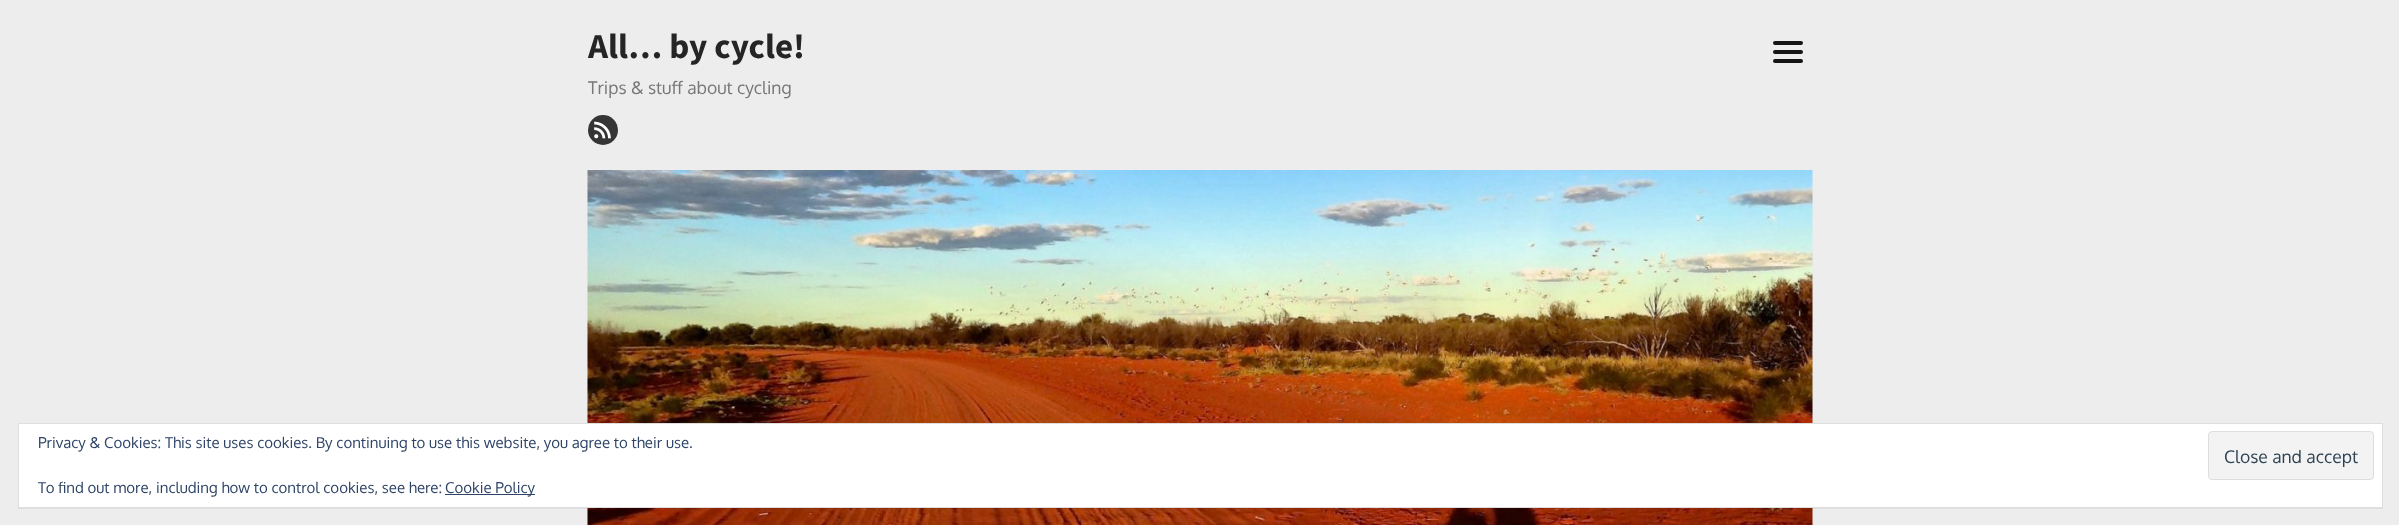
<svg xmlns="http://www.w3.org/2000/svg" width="2399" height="525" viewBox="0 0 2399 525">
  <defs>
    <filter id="blur1" x="-50%" y="-200%" width="200%" height="500%"><feGaussianBlur stdDeviation="0.5"/></filter>
  </defs>
  <rect width="100%" height="100%" fill="#ededed"/>
  <text x="588" y="58" font-family="Source Sans Pro" font-size="35" font-weight="bold" fill="#252525">All… by cycle!</text>
  <text x="588" y="94" font-family="Oxygen" font-size="17.5" fill="#777777">Trips &amp; stuff about cycling</text>
  <circle cx="603" cy="130" r="15" fill="#353535"/>
  <image x="594" y="121" width="17" height="18" href="img1.png"/>
  <rect x="1773" y="50" width="30" height="4" rx="2" fill="#151515"/>
  <rect x="1773" y="41" width="30" height="4" rx="2" fill="#151515"/>
  <rect x="1773" y="59" width="30" height="4" rx="2" fill="#151515"/>
  <image x="587" y="170" width="1226" height="355" href="img2.png"/>
  <rect x="18" y="424" width="2365" height="85" fill="#000000" fill-opacity="0.06" filter="url(#blur1)"/>
  <rect x="18.5" y="423.5" width="2364" height="84" fill="#ffffff" stroke="#dedede"/>
  <text x="38" y="448" font-family="Oxygen" font-size="15" fill="#2e4467">Privacy &amp; Cookies: This site uses cookies. By continuing to use this website, you agree to their use.</text>
  <rect x="2208.5" y="431.5" width="165" height="48" rx="3.5" fill="#f3f3f3" stroke="#dedede"/>
  <text x="2224" y="463" font-family="Oxygen" font-size="17.5" fill="#2e4453">Close and accept</text>
  <text x="38" y="493" font-family="Oxygen" font-size="15" fill="#2e4467">To find out more, including how to control cookies, see here:</text>
  <rect x="445" y="494" width="90" height="1" fill="#2e4467"/>
  <text x="445" y="493" font-family="Oxygen" font-size="15" fill="#2e4467">Cookie Policy</text>
</svg>
